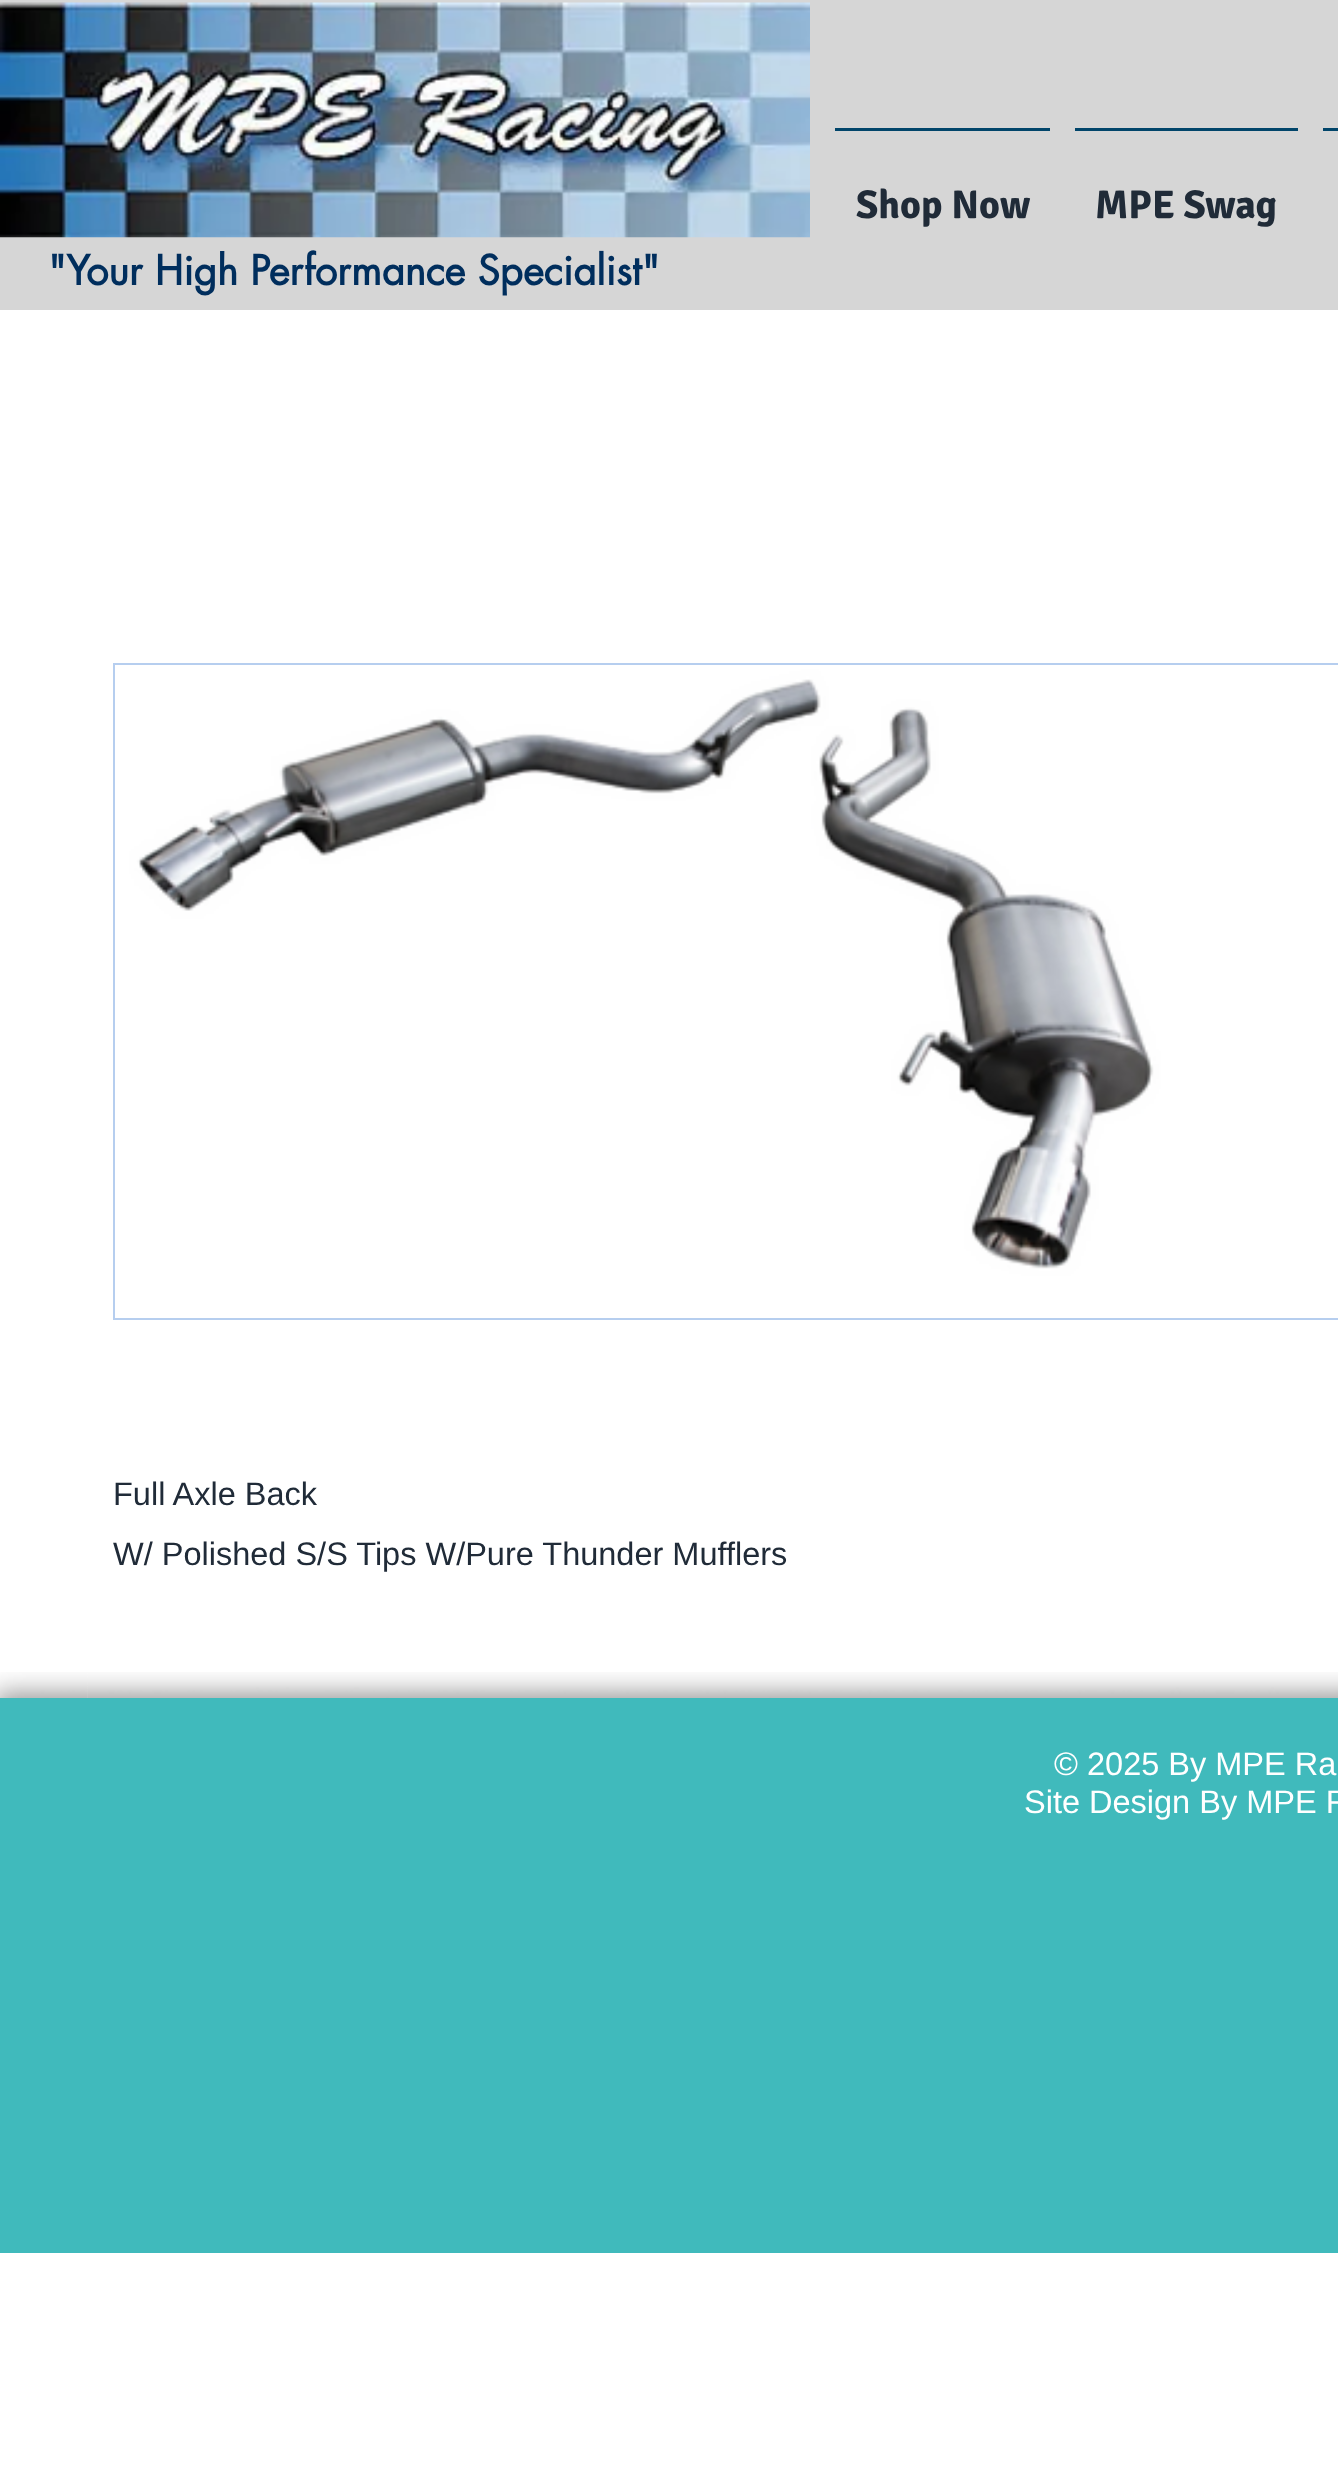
<svg xmlns="http://www.w3.org/2000/svg" width="1338" height="2478" viewBox="0 0 1338 2478">
  <rect width="100%" height="100%" fill="#ffffff"/>
  <rect x="0" y="0" width="1338" height="310" fill="#d6d6d6"/>
  <image x="0" y="2" width="810" height="236" href="img1.png"/>
  <rect x="1323" y="128" width="15" height="3" fill="#01456a"/>
  <rect x="835" y="128" width="215" height="3" fill="#01456a"/>
  <text x="856" y="218" font-family="Signika" font-size="40" font-weight="bold" fill="#202b38">Shop Now</text>
  <rect x="1075" y="128" width="223" height="3" fill="#01456a"/>
  <text x="1095" y="218" font-family="Signika" font-size="40" font-weight="bold" fill="#202b38">MPE Swag</text>
  <text x="48" y="285" font-family="futura" font-size="40" font-weight="bold" fill="#002e5d">"Your High Performance Specialist"</text>
  <rect x="114.5" y="664.5" width="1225" height="654" fill="none" stroke="#b6ceef" stroke-width="3"/>
  <image x="115" y="665" width="1223" height="653" href="img2.png"/>
  <text x="113" y="1505" font-family="Liberation Sans" font-size="32.5" fill="#202b38">Full Axle Back</text>
  <text x="113" y="1565" font-family="Liberation Sans" font-size="32.5" fill="#202b38">W/ Polished S/S Tips W/Pure Thunder Mufflers</text>
  <image x="0" y="1672" width="88" height="26" href="img3.png"/>
  <image x="87" y="1672" width="1251" height="26" href="img4.png"/>
  <rect x="0" y="1698" width="1338" height="555" fill="#40babc"/>
  <text x="1054" y="1775" font-family="Liberation Sans" font-size="32.5" fill="#ffffff">© 2025 By MPE Ra</text>
  <text x="1024" y="1813" font-family="Liberation Sans" font-size="32.5" fill="#ffffff">Site Design By MPE R</text>
</svg>
